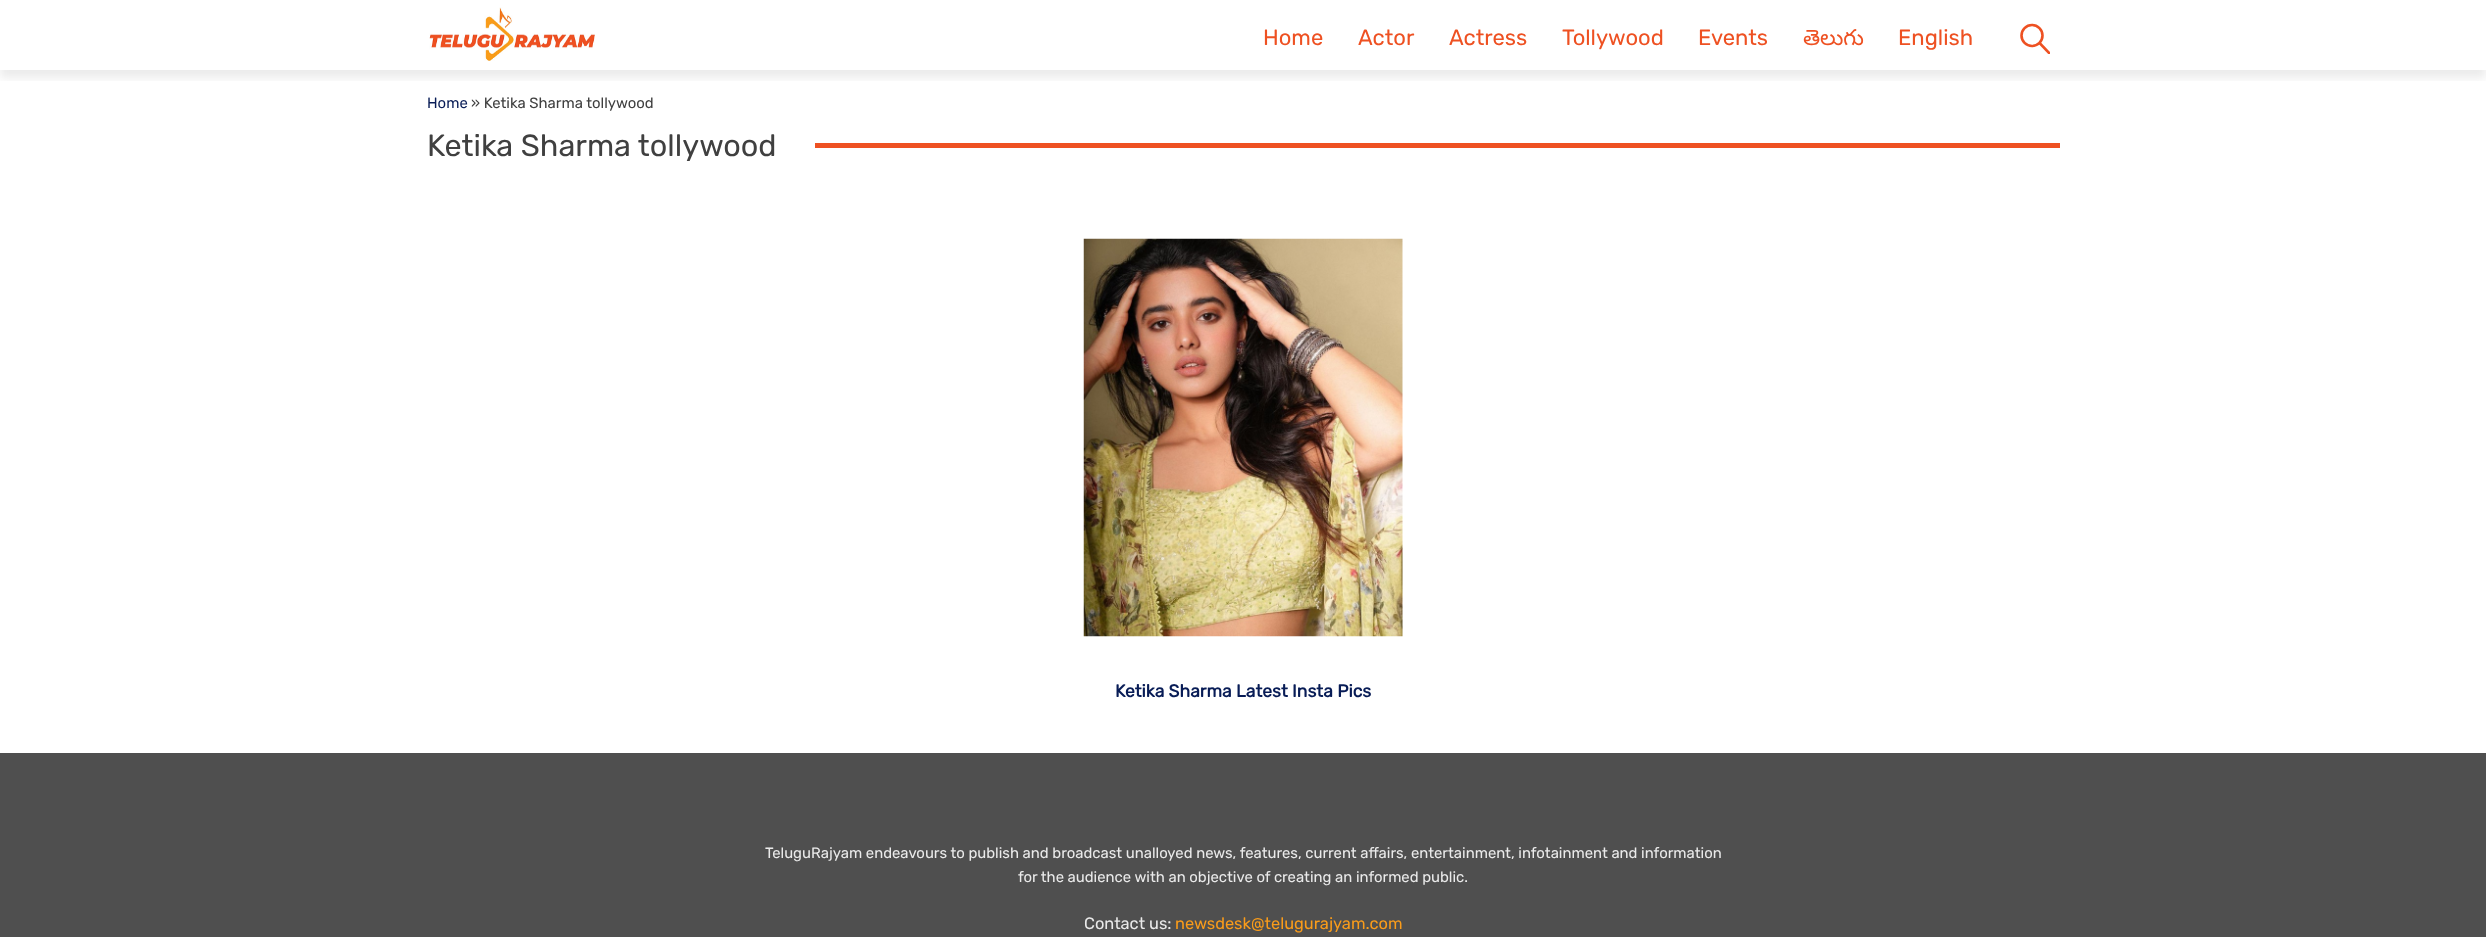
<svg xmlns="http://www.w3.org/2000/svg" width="2486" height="937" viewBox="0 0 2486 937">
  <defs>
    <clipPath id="clip1"><rect x="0" y="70" width="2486" height="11"/></clipPath>
    <filter id="blur1" x="-50%" y="-200%" width="200%" height="500%"><feGaussianBlur stdDeviation="5"/></filter>
    <clipPath id="clip2"><rect x="2019" y="23" width="31" height="31"/></clipPath>
    <clipPath id="clip3"><rect x="428" y="131" width="1632" height="30"/></clipPath>
  </defs>
  <rect width="100%" height="100%" fill="#ffffff"/>
  <g clip-path="url(#clip1)">
    <rect x="0" y="14" width="2486" height="64" fill="#000000" fill-opacity="0.08" filter="url(#blur1)"/>
  </g>
  <image x="429" y="7" width="166" height="54" href="img1.png"/>
  <text x="1263" y="45" font-family="Rubik" font-size="22" font-weight="300" fill="#ee5122">Home</text>
  <text x="1358" y="45" font-family="Rubik" font-size="22" font-weight="300" fill="#ee5122">Actor</text>
  <text x="1449" y="45" font-family="Rubik" font-size="22" font-weight="300" fill="#ee5122">Actress</text>
  <text x="1562" y="45" font-family="Rubik" font-size="22" font-weight="300" fill="#ee5122">Tollywood</text>
  <text x="1698" y="45" font-family="Rubik" font-size="22" font-weight="300" fill="#ee5122">Events</text>
  <text x="1803" y="45" font-family="Noto Sans Telugu" font-size="22" fill="#ee5122">తెలుగు</text>
  <text x="1898" y="45" font-family="Rubik" font-size="22" font-weight="300" fill="#ee5122">English</text>
  <g clip-path="url(#clip2)">
    <path d="M2040.5 44L2050 54" fill="none" stroke="#ee5122" stroke-width="2.6" stroke-linecap="square"/>
  </g>
  <circle cx="2032" cy="35.5" r="10.5" fill="none" stroke="#ee5122" stroke-width="2.6"/>
  <text x="427" y="108" font-family="Rubik" font-size="14.88" font-weight="300" fill="#081c56">Home</text>
  <text x="471" y="108" font-family="Rubik" font-size="14.88" font-weight="300" fill="#404040">» Ketika Sharma tollywood</text>
  <g clip-path="url(#clip3)">
    <text x="427" y="156" font-family="Rubik" font-size="30.6" font-weight="300" fill="#404040">Ketika Sharma tollywood</text>
  </g>
  <rect x="815" y="143" width="1245" height="5" fill="#ee5122"/>
  <image x="1083" y="238" width="320" height="399" href="img2.png"/>
  <text x="1115" y="697" font-family="Rubik" font-size="17.5" font-weight="bold" fill="#081c56">Ketika Sharma Latest Insta Pics</text>
  <rect x="0" y="753" width="2486" height="184" fill="#4f4f4f"/>
  <text x="765" y="858" font-family="Rubik" font-size="14.88" font-weight="300" fill="#eaeaea">TeluguRajyam endeavours to publish and broadcast unalloyed news, features, current affairs, entertainment, infotainment and information</text>
  <text x="1018" y="882" font-family="Rubik" font-size="14.88" font-weight="300" fill="#eaeaea">for the audience with an objective of creating an informed public.</text>
  <text x="1084" y="929" font-family="Rubik" font-size="16.4" font-weight="300" fill="#eaeaea">Contact us:</text>
  <text x="1175" y="929" font-family="Rubik" font-size="16.4" font-weight="300" fill="#fa9c1a">newsdesk@telugurajyam.com</text>
</svg>
